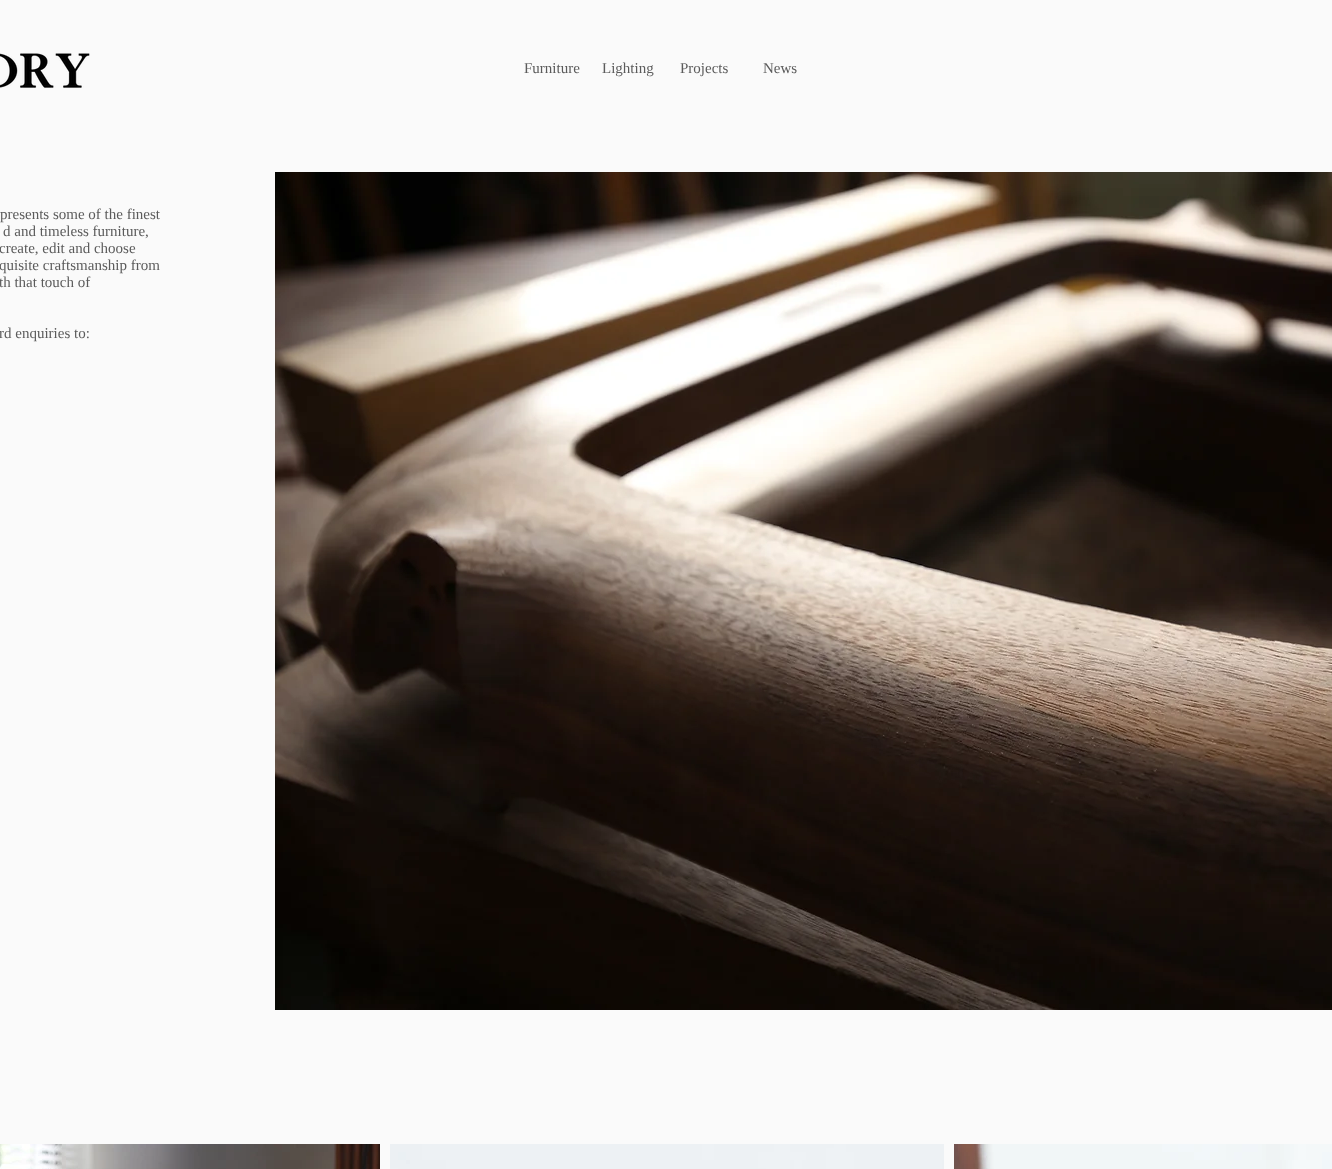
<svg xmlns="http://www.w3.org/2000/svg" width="1332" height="1169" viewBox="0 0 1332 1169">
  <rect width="100%" height="100%" fill="#fafafa"/>
  <image x="0" y="53" width="90" height="35" href="img1.png"/>
  <text x="524" y="73" font-family="Liberation Serif" font-size="15" fill="#5b5b5b">Furniture</text>
  <text x="602" y="73" font-family="Liberation Serif" font-size="15" fill="#5b5b5b">Lighting</text>
  <text x="680" y="73" font-family="Liberation Serif" font-size="15" fill="#5b5b5b">Projects</text>
  <text x="763" y="73" font-family="Liberation Serif" font-size="15" fill="#5b5b5b">News</text>
  <text x="0" y="219" font-family="Liberation Serif" font-size="15" fill="#5b5b5b">presents some of the finest</text>
  <text x="3" y="236" font-family="Liberation Serif" font-size="15" fill="#5b5b5b">d and timeless furniture,</text>
  <text x="-1" y="253" font-family="Liberation Serif" font-size="15" fill="#5b5b5b">create, edit and choose</text>
  <text x="-1" y="270" font-family="Liberation Serif" font-size="15" fill="#5b5b5b">quisite craftsmanship from</text>
  <text x="-1" y="287" font-family="Liberation Serif" font-size="15" fill="#5b5b5b">th that touch of</text>
  <text x="-1" y="338" font-family="Liberation Serif" font-size="15" fill="#5b5b5b">rd enquiries to:</text>
  <image x="275" y="172" width="1057" height="838" href="img2.png"/>
  <image x="0" y="1144" width="380" height="25" href="img3.png"/>
  <image x="390" y="1144" width="554" height="25" href="img4.png"/>
  <image x="954" y="1144" width="378" height="25" href="img5.png"/>
</svg>
